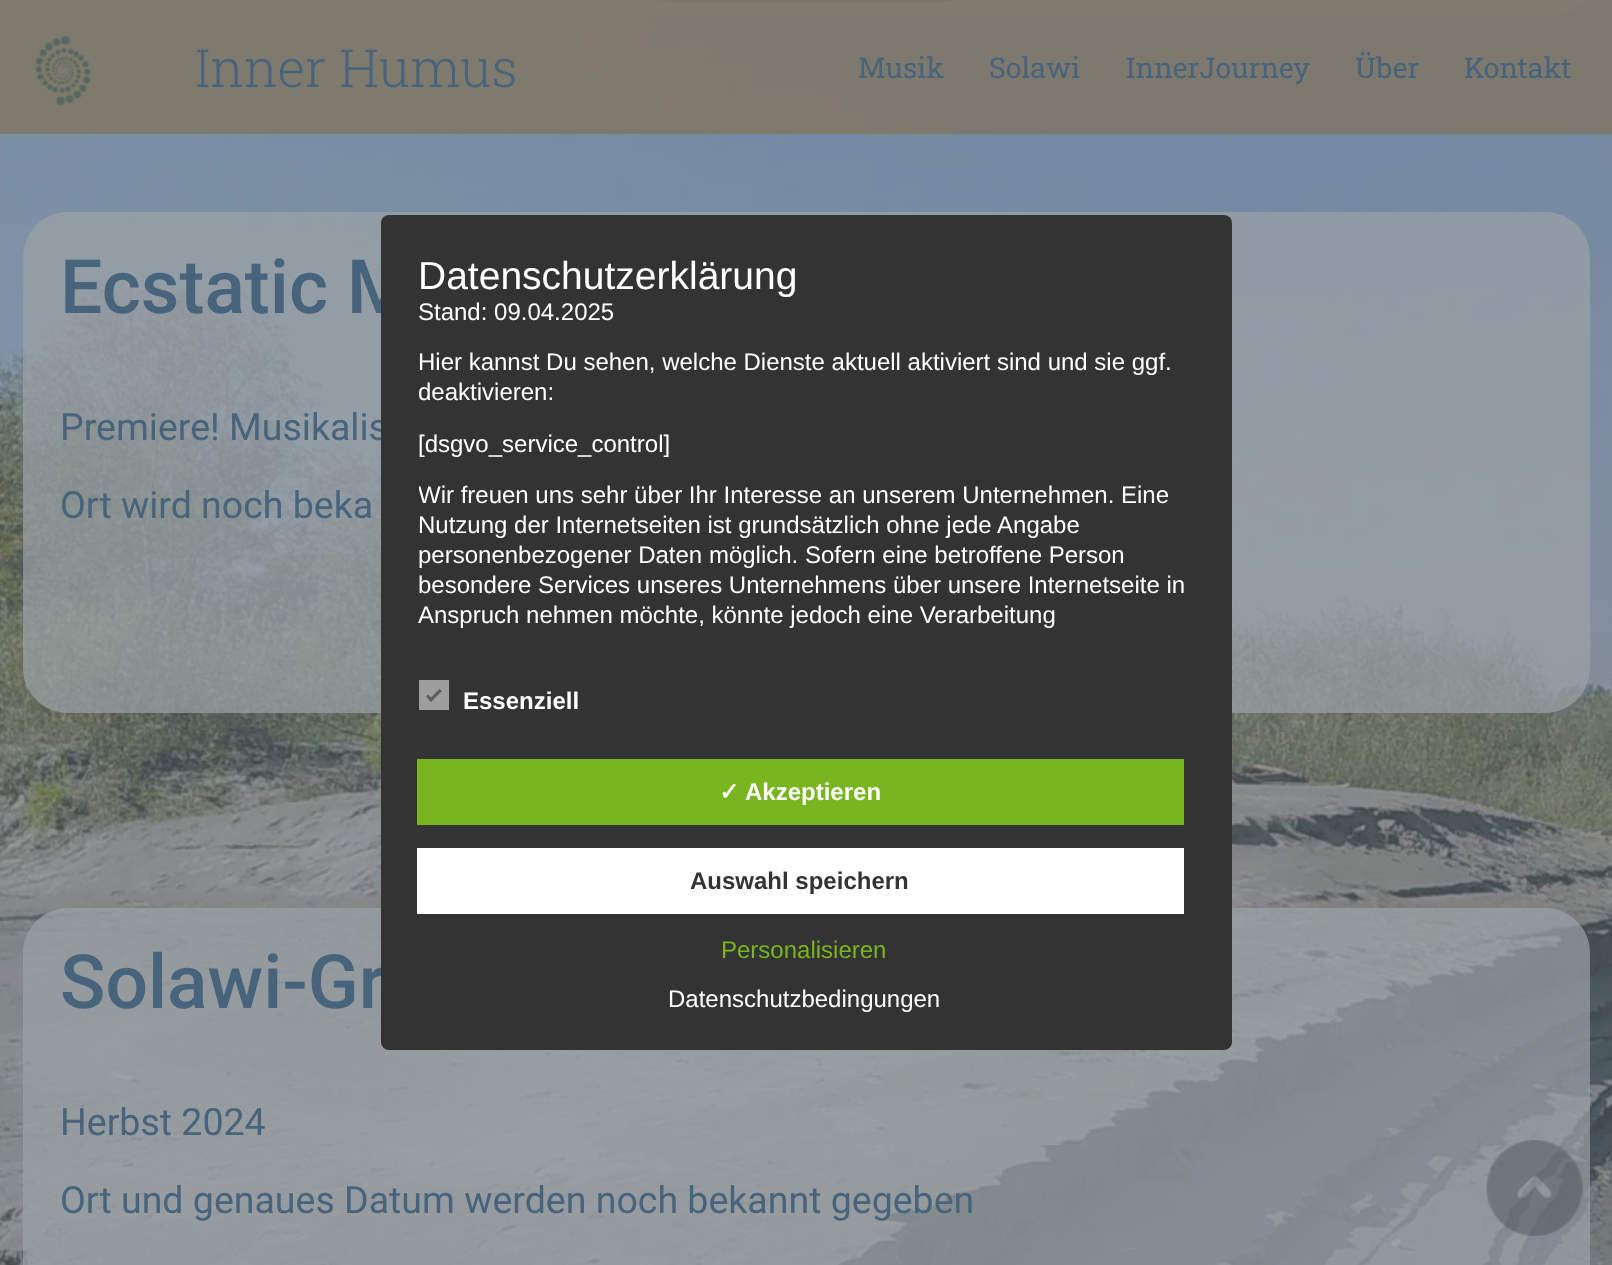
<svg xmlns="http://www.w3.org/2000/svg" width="1612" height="1265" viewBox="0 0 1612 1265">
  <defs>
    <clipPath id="clip1"><rect x="419" y="252" width="790" height="380"/></clipPath>
  </defs>
  <rect width="100%" height="100%" fill="#ffffff"/>
  <image x="0" y="0" width="1612" height="39" href="img2.png"/>
  <rect x="23" y="-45" width="1567" height="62" rx="45" fill="#9ba2a7" fill-opacity="0.7"/>
  <rect x="642" y="-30" width="329" height="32" rx="29.5" fill="#48647c"/>
  <image x="0" y="39" width="1612" height="695" href="img3.png"/>
  <rect x="0" y="0" width="1612" height="134" fill="#807868" fill-opacity="0.91"/>
  <image x="34" y="35" width="58" height="71" href="img1.png"/>
  <text x="195" y="87" font-family="Roboto Slab" font-size="52.5" font-weight="300" fill="#48647c">Inner Humus</text>
  <text x="858" y="78" font-family="Roboto Slab" font-size="28.5" fill="#48647c">Musik</text>
  <text x="989" y="78" font-family="Roboto Slab" font-size="28.5" fill="#48647c">Solawi</text>
  <text x="1126" y="78" font-family="Roboto Slab" font-size="28.5" fill="#48647c">InnerJourney</text>
  <text x="1355" y="78" font-family="Roboto Slab" font-size="28.5" fill="#48647c">Über</text>
  <text x="1464" y="78" font-family="Roboto Slab" font-size="28.5" fill="#48647c">Kontakt</text>
  <rect x="23" y="212" width="1567" height="501" rx="45" fill="#9ba2a7" fill-opacity="0.7"/>
  <text x="60" y="313" font-family="Roboto" font-size="75" font-weight="500" fill="#48647c">Ecstatic M</text>
  <text x="60" y="440" font-family="Roboto" font-size="37.5" fill="#48647c">Premiere! Musikalis</text>
  <text x="60" y="518" font-family="Roboto" font-size="37.5" fill="#48647c">Ort wird noch beka</text>
  <image x="0" y="734" width="1612" height="531" href="img4.png"/>
  <rect x="23" y="908" width="1567" height="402" rx="45" fill="#9ba2a7" fill-opacity="0.7"/>
  <text x="60" y="1008" font-family="Roboto" font-size="75" font-weight="500" fill="#48647c">Solawi-Gr</text>
  <text x="60" y="1135" font-family="Roboto" font-size="37.5" fill="#48647c">Herbst 2024</text>
  <text x="60" y="1213" font-family="Roboto" font-size="37.5" fill="#48647c">Ort und genaues Datum werden noch bekannt gegeben</text>
  <rect x="381" y="215" width="851" height="835" rx="8" fill="#333333"/>
  <text x="418" y="289" font-family="Liberation Sans" font-size="39" fill="#ffffff">Datenschutzerklärung</text>
  <text x="418" y="320" font-family="Liberation Sans" font-size="24" fill="#ffffff">Stand: 09.04.2025</text>
  <text x="418" y="370" font-family="Liberation Sans" font-size="24" fill="#ffffff">Hier kannst Du sehen, welche Dienste aktuell aktiviert sind und sie ggf.</text>
  <text x="418" y="400" font-family="Liberation Sans" font-size="24" fill="#ffffff">deaktivieren:</text>
  <text x="418" y="452" font-family="Liberation Sans" font-size="24" fill="#ffffff">[dsgvo_service_control]</text>
  <g clip-path="url(#clip1)">
    <text x="418" y="503" font-family="Liberation Sans" font-size="24" fill="#ffffff">Wir freuen uns sehr über Ihr Interesse an unserem Unternehmen. Eine</text>
  </g>
  <text x="418" y="533" font-family="Liberation Sans" font-size="24" fill="#ffffff">Nutzung der Internetseiten ist grundsätzlich ohne jede Angabe</text>
  <text x="418" y="563" font-family="Liberation Sans" font-size="24" fill="#ffffff">personenbezogener Daten möglich. Sofern eine betroffene Person</text>
  <text x="418" y="593" font-family="Liberation Sans" font-size="24" fill="#ffffff">besondere Services unseres Unternehmens über unsere Internetseite in</text>
  <text x="418" y="623" font-family="Liberation Sans" font-size="24" fill="#ffffff">Anspruch nehmen möchte, könnte jedoch eine Verarbeitung</text>
  <rect x="419" y="680" width="30" height="30" fill="#9e9e9e"/>
  <path d="M439.5 689L442 691L431 702L429 699.5Z" fill="#5e5e5e"/>
  <path d="M428 694.5L433.5 699.5L431 702L426 696.5Z" fill="#5e5e5e"/>
  <text x="463" y="709" font-family="Liberation Sans" font-size="24" font-weight="bold" fill="#ffffff">Essenziell</text>
  <rect x="417" y="759" width="767" height="66" fill="#79b51f"/>
  <text x="719" y="800" font-family="DejaVu Sans" font-size="24" font-weight="bold" fill="#ffffff">✓</text>
  <text x="745" y="800" font-family="Liberation Sans" font-size="24" font-weight="bold" fill="#ffffff">Akzeptieren</text>
  <rect x="417" y="848" width="767" height="66" fill="#ffffff"/>
  <text x="690" y="889" font-family="Liberation Sans" font-size="24" font-weight="bold" fill="#333333">Auswahl speichern</text>
  <text x="721" y="958" font-family="Liberation Sans" font-size="24" fill="#79b51f">Personalisieren</text>
  <text x="668" y="1007" font-family="Liberation Sans" font-size="24" fill="#ffffff">Datenschutzbedingungen</text>
  <image x="1486" y="1140" width="97" height="96" href="img5.png"/>
</svg>
